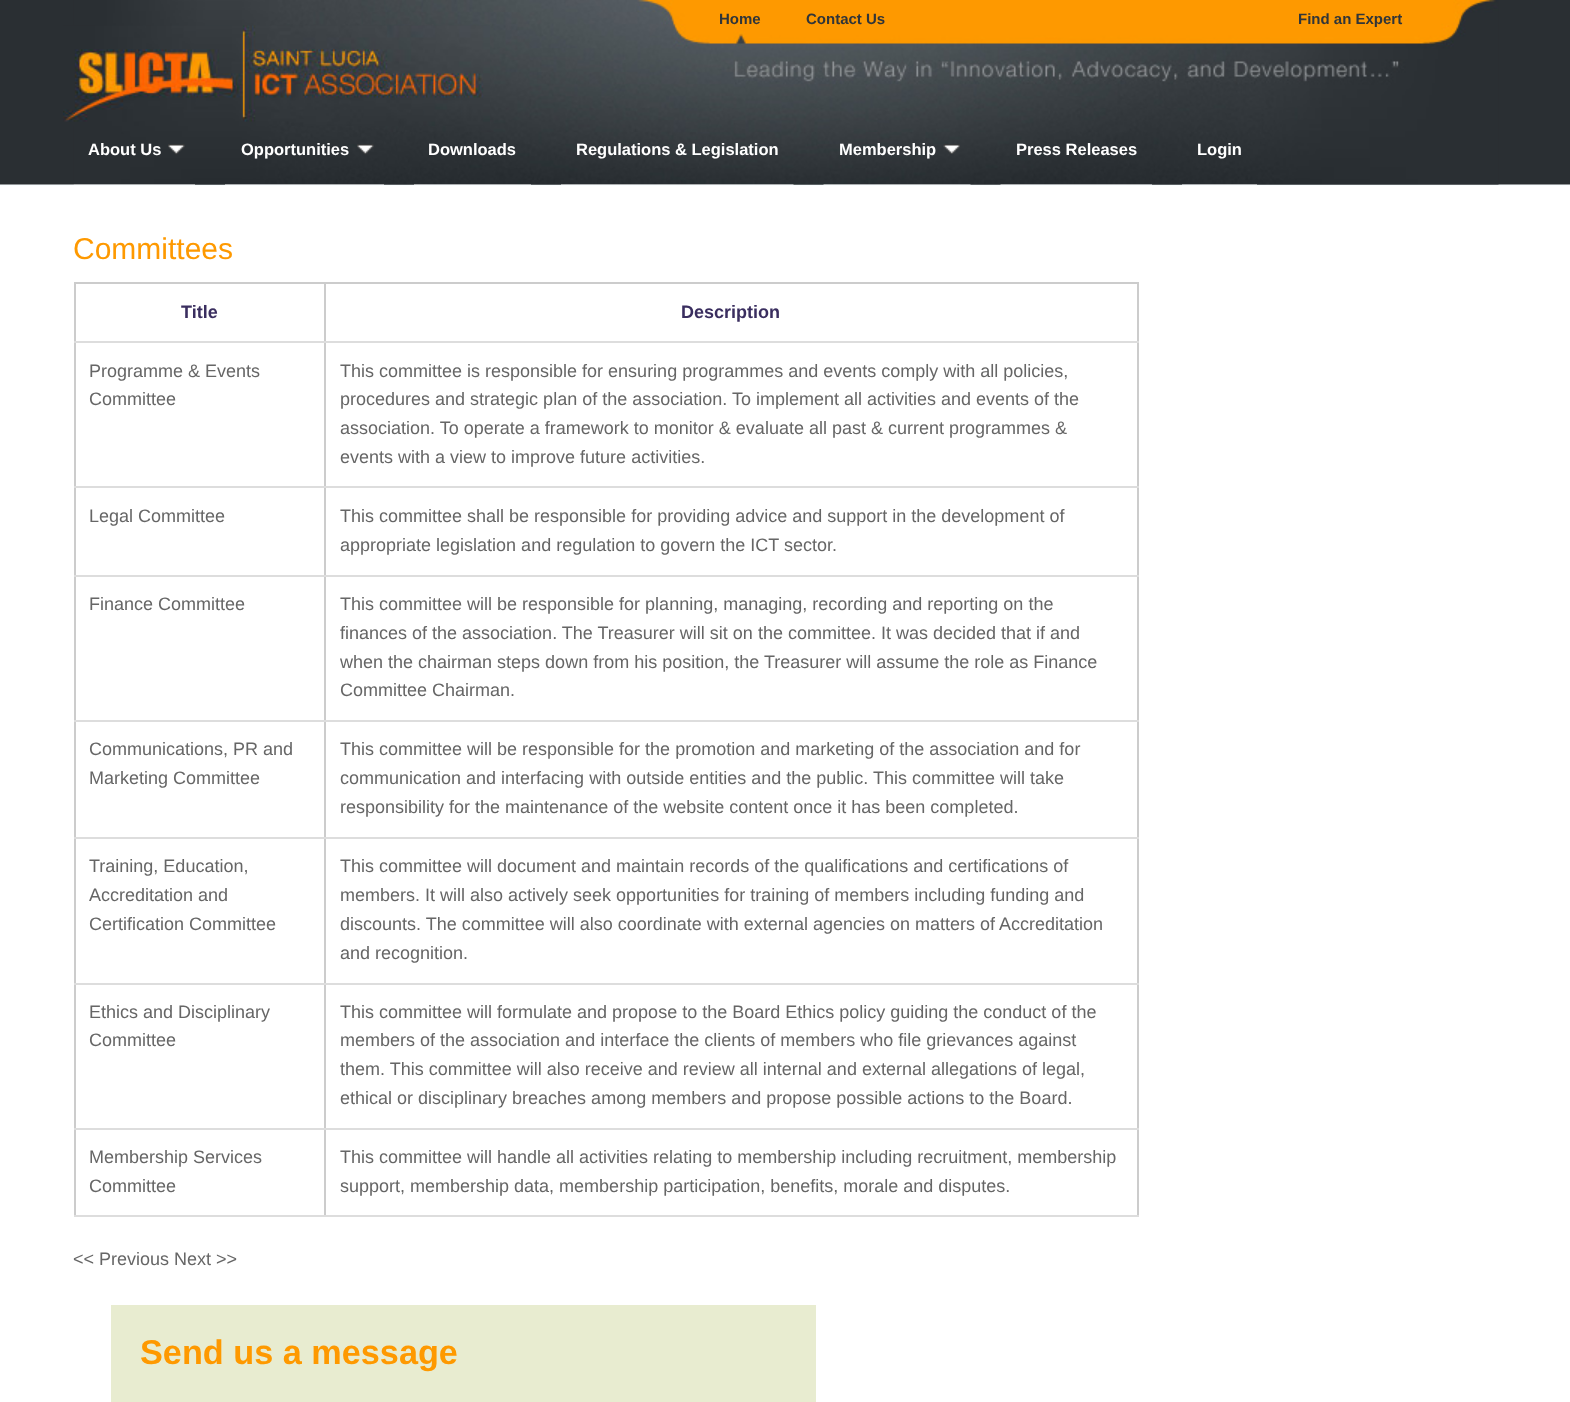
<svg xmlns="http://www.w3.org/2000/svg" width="1570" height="1402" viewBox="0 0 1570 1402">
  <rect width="100%" height="100%" fill="#ffffff"/>
  <image x="0" y="0" width="1570" height="186" href="img1.png"/>
  <image x="73" y="0" width="1426" height="185" href="img2.png"/>
  <text x="719" y="24" font-family="Liberation Sans" font-size="15" font-weight="bold" fill="#303539">Home</text>
  <text x="806" y="24" font-family="Liberation Sans" font-size="15" font-weight="bold" fill="#303539">Contact Us</text>
  <text x="1298" y="24" font-family="Liberation Sans" font-size="15" font-weight="bold" fill="#303539">Find an Expert</text>
  <image x="63" y="25" width="427" height="101" href="img3.png"/>
  <image x="73" y="184" width="122" height="1" href="img4.png"/>
  <text x="88" y="155" font-family="Liberation Sans" font-size="16.5" font-weight="bold" fill="#ffffff">About Us</text>
  <image x="168" y="144" width="17" height="11" href="img5.png"/>
  <image x="225" y="184" width="159" height="1" href="img6.png"/>
  <text x="241" y="155" font-family="Liberation Sans" font-size="16.5" font-weight="bold" fill="#ffffff">Opportunities</text>
  <image x="357" y="144" width="17" height="11" href="img7.png"/>
  <image x="414" y="184" width="117" height="1" href="img8.png"/>
  <text x="428" y="155" font-family="Liberation Sans" font-size="16.5" font-weight="bold" fill="#ffffff">Downloads</text>
  <image x="561" y="184" width="233" height="1" href="img9.png"/>
  <text x="576" y="155" font-family="Liberation Sans" font-size="16.5" font-weight="bold" fill="#ffffff">Regulations &amp; Legislation</text>
  <image x="823" y="184" width="148" height="1" href="img10.png"/>
  <text x="839" y="155" font-family="Liberation Sans" font-size="16.5" font-weight="bold" fill="#ffffff">Membership</text>
  <image x="943" y="144" width="17" height="10" href="img11.png"/>
  <image x="1000" y="184" width="152" height="1" href="img12.png"/>
  <text x="1016" y="155" font-family="Liberation Sans" font-size="16.5" font-weight="bold" fill="#ffffff">Press Releases</text>
  <image x="1182" y="184" width="75" height="1" href="img13.png"/>
  <text x="1197" y="155" font-family="Liberation Sans" font-size="16.5" font-weight="bold" fill="#ffffff">Login</text>
  <text x="73" y="259" font-family="Liberation Sans" font-size="30" fill="#fe9900">Committees</text>
  <rect x="74" y="282" width="1065" height="2" fill="#cccccc"/>
  <rect x="74" y="282" width="2" height="935" fill="#cccccc"/>
  <rect x="1137" y="282" width="2" height="935" fill="#cccccc"/>
  <rect x="324" y="1215" width="815" height="2" fill="#dddddd"/>
  <rect x="324" y="1128" width="2" height="89" fill="#cccccc"/>
  <rect x="324" y="1128" width="815" height="2" fill="#dddddd"/>
  <rect x="324" y="983" width="2" height="147" fill="#cccccc"/>
  <rect x="324" y="983" width="815" height="2" fill="#dddddd"/>
  <rect x="324" y="837" width="2" height="147" fill="#cccccc"/>
  <rect x="324" y="837" width="815" height="2" fill="#dddddd"/>
  <rect x="324" y="720" width="2" height="119" fill="#cccccc"/>
  <rect x="324" y="720" width="815" height="2" fill="#dddddd"/>
  <rect x="324" y="575" width="2" height="147" fill="#cccccc"/>
  <rect x="324" y="575" width="815" height="2" fill="#dddddd"/>
  <rect x="324" y="486" width="2" height="90" fill="#cccccc"/>
  <rect x="324" y="486" width="815" height="2" fill="#dddddd"/>
  <rect x="324" y="341" width="2" height="147" fill="#cccccc"/>
  <rect x="324" y="341" width="815" height="2" fill="#dddddd"/>
  <rect x="324" y="282" width="2" height="60" fill="#cccccc"/>
  <rect x="74" y="341" width="252" height="2" fill="#dddddd"/>
  <text x="181" y="318" font-family="Liberation Sans" font-size="18" font-weight="bold" fill="#3a2e5f">Title</text>
  <text x="681" y="318" font-family="Liberation Sans" font-size="18" font-weight="bold" fill="#3a2e5f">Description</text>
  <rect x="74" y="486" width="252" height="2" fill="#dddddd"/>
  <text x="89" y="377" font-family="Liberation Sans" font-size="18" fill="#666666">Programme &amp; Events</text>
  <text x="89" y="405" font-family="Liberation Sans" font-size="18" fill="#666666">Committee</text>
  <text x="340" y="377" font-family="Liberation Sans" font-size="18" fill="#666666">This committee is responsible for ensuring programmes and events comply with all policies,</text>
  <text x="340" y="405" font-family="Liberation Sans" font-size="18" fill="#666666">procedures and strategic plan of the association. To implement all activities and events of the</text>
  <text x="340" y="434" font-family="Liberation Sans" font-size="18" fill="#666666">association. To operate a framework to monitor &amp; evaluate all past &amp; current programmes &amp;</text>
  <text x="340" y="463" font-family="Liberation Sans" font-size="18" fill="#666666">events with a view to improve future activities.</text>
  <rect x="74" y="575" width="252" height="2" fill="#dddddd"/>
  <text x="89" y="522" font-family="Liberation Sans" font-size="18" fill="#666666">Legal Committee</text>
  <text x="340" y="522" font-family="Liberation Sans" font-size="18" fill="#666666">This committee shall be responsible for providing advice and support in the development of</text>
  <text x="340" y="551" font-family="Liberation Sans" font-size="18" fill="#666666">appropriate legislation and regulation to govern the ICT sector.</text>
  <rect x="74" y="720" width="252" height="2" fill="#dddddd"/>
  <text x="89" y="610" font-family="Liberation Sans" font-size="18" fill="#666666">Finance Committee</text>
  <text x="340" y="610" font-family="Liberation Sans" font-size="18" fill="#666666">This committee will be responsible for planning, managing, recording and reporting on the</text>
  <text x="340" y="639" font-family="Liberation Sans" font-size="18" fill="#666666">finances of the association. The Treasurer will sit on the committee. It was decided that if and</text>
  <text x="340" y="668" font-family="Liberation Sans" font-size="18" fill="#666666">when the chairman steps down from his position, the Treasurer will assume the role as Finance</text>
  <text x="340" y="696" font-family="Liberation Sans" font-size="18" fill="#666666">Committee Chairman.</text>
  <rect x="74" y="837" width="252" height="2" fill="#dddddd"/>
  <text x="89" y="755" font-family="Liberation Sans" font-size="18" fill="#666666">Communications, PR and</text>
  <text x="89" y="784" font-family="Liberation Sans" font-size="18" fill="#666666">Marketing Committee</text>
  <text x="340" y="755" font-family="Liberation Sans" font-size="18" fill="#666666">This committee will be responsible for the promotion and marketing of the association and for</text>
  <text x="340" y="784" font-family="Liberation Sans" font-size="18" fill="#666666">communication and interfacing with outside entities and the public. This committee will take</text>
  <text x="340" y="813" font-family="Liberation Sans" font-size="18" fill="#666666">responsibility for the maintenance of the website content once it has been completed.</text>
  <rect x="74" y="983" width="252" height="2" fill="#dddddd"/>
  <text x="89" y="872" font-family="Liberation Sans" font-size="18" fill="#666666">Training, Education,</text>
  <text x="89" y="901" font-family="Liberation Sans" font-size="18" fill="#666666">Accreditation and</text>
  <text x="89" y="930" font-family="Liberation Sans" font-size="18" fill="#666666">Certification Committee</text>
  <text x="340" y="872" font-family="Liberation Sans" font-size="18" fill="#666666">This committee will document and maintain records of the qualifications and certifications of</text>
  <text x="340" y="901" font-family="Liberation Sans" font-size="18" fill="#666666">members. It will also actively seek opportunities for training of members including funding and</text>
  <text x="340" y="930" font-family="Liberation Sans" font-size="18" fill="#666666">discounts. The committee will also coordinate with external agencies on matters of Accreditation</text>
  <text x="340" y="959" font-family="Liberation Sans" font-size="18" fill="#666666">and recognition.</text>
  <rect x="74" y="1128" width="252" height="2" fill="#dddddd"/>
  <text x="89" y="1018" font-family="Liberation Sans" font-size="18" fill="#666666">Ethics and Disciplinary</text>
  <text x="89" y="1046" font-family="Liberation Sans" font-size="18" fill="#666666">Committee</text>
  <text x="340" y="1018" font-family="Liberation Sans" font-size="18" fill="#666666">This committee will formulate and propose to the Board Ethics policy guiding the conduct of the</text>
  <text x="340" y="1046" font-family="Liberation Sans" font-size="18" fill="#666666">members of the association and interface the clients of members who file grievances against</text>
  <text x="340" y="1075" font-family="Liberation Sans" font-size="18" fill="#666666">them. This committee will also receive and review all internal and external allegations of legal,</text>
  <text x="340" y="1104" font-family="Liberation Sans" font-size="18" fill="#666666">ethical or disciplinary breaches among members and propose possible actions to the Board.</text>
  <rect x="74" y="1215" width="252" height="2" fill="#dddddd"/>
  <text x="89" y="1163" font-family="Liberation Sans" font-size="18" fill="#666666">Membership Services</text>
  <text x="89" y="1192" font-family="Liberation Sans" font-size="18" fill="#666666">Committee</text>
  <text x="340" y="1163" font-family="Liberation Sans" font-size="18" fill="#666666">This committee will handle all activities relating to membership including recruitment, membership</text>
  <text x="340" y="1192" font-family="Liberation Sans" font-size="18" fill="#666666">support, membership data, membership participation, benefits, morale and disputes.</text>
  <text x="73" y="1265" font-family="Liberation Sans" font-size="18" fill="#666666">&lt;&lt; Previous Next &gt;&gt;</text>
  <rect x="111" y="1305" width="705" height="97" fill="#e8ecd0"/>
  <text x="140" y="1364" font-family="Liberation Sans" font-size="34.25" font-weight="bold" fill="#fe9900">Send us a message</text>
</svg>
